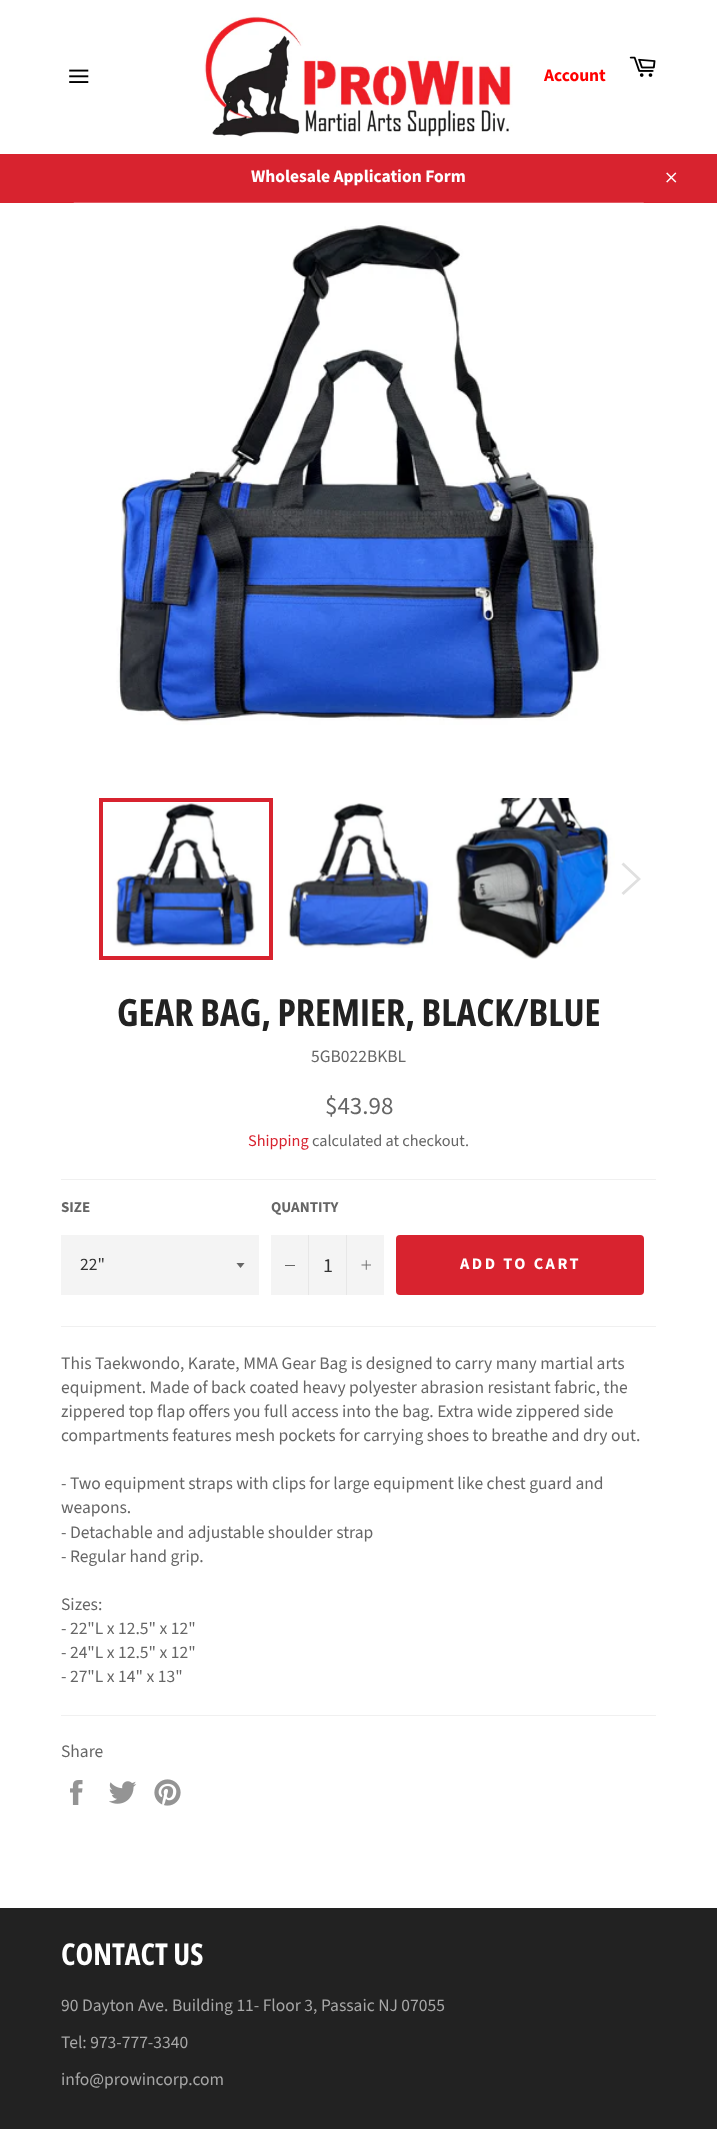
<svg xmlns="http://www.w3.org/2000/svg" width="717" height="2129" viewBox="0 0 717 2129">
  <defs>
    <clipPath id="clip1"><rect x="236" y="1263" width="10" height="6"/></clipPath>
  </defs>
  <rect width="100%" height="100%" fill="#ffffff"/>
  <image x="69" y="69" width="20" height="14" href="img1.png"/>
  <image x="204" y="13" width="309" height="124" href="img2.png"/>
  <text x="544" y="81" font-family="Source Sans Pro" font-size="17.5" font-weight="bold" fill="#ff0000">Account</text>
  <image x="629" y="56" width="27" height="21" href="img3.png"/>
  <rect x="0" y="154" width="717" height="49" fill="#d8232f"/>
  <text x="251" y="182" font-family="Source Sans Pro" font-size="17.5" font-weight="bold" fill="#ffffff">Wholesale Application Form</text>
  <image x="666" y="172" width="11" height="11" href="img4.png"/>
  <image x="73" y="202" width="571" height="523" href="img5.png"/>
  <image x="112" y="803" width="143" height="144" href="img6.png"/>
  <rect x="101" y="800" width="170" height="158" fill="none" stroke="#d8232f" stroke-width="4"/>
  <image x="288" y="803" width="145" height="145" href="img7.png"/>
  <image x="455" y="798" width="160" height="161" href="img8.png"/>
  <path d="M621.5 864.5L623.5 862.5L641 879L623.5 895L621.5 893L637 879Z" fill="#e0e0e0"/>
  <text x="117" y="1026" font-family="Open Sans Condensed" font-size="37.5" font-weight="bold" fill="#222222">GEAR BAG, PREMIER, BLACK/BLUE</text>
  <text x="311" y="1062" font-family="Source Sans Pro" font-size="17.5" fill="#666666">5GB022BKBL</text>
  <text x="325" y="1114" font-family="Source Sans Pro" font-size="25" fill="#666666">$43.98</text>
  <text x="248" y="1146" font-family="Source Sans Pro" font-size="16.25" fill="#d8232f">Shipping</text>
  <text x="312" y="1146" font-family="Source Sans Pro" font-size="16.25" fill="#666666">calculated at checkout.</text>
  <rect x="61" y="1179" width="595" height="1" fill="#f0f0f0"/>
  <text x="61" y="1212" font-family="Source Sans Pro" font-size="15" font-weight="bold" fill="#666666">SIZE</text>
  <rect x="61" y="1235" width="198" height="60" fill="#f4f4f4"/>
  <g clip-path="url(#clip1)">
    <path d="M236 1262.5L240.5 1268L245 1262.5Z" fill="#666666"/>
  </g>
  <text x="80" y="1270" font-family="Source Sans Pro" font-size="17.5" fill="#333333">22"</text>
  <text x="271" y="1212" font-family="Source Sans Pro" font-size="15" font-weight="bold" fill="#666666">QUANTITY</text>
  <rect x="271" y="1235" width="113" height="60" fill="#f4f4f4"/>
  <rect x="308" y="1235" width="1" height="60" fill="#e7e7e7"/>
  <rect x="285" y="1265" width="10" height="1" fill="#666666"/>
  <text x="323" y="1272" font-family="Source Sans Pro" font-size="20" fill="#333333">1</text>
  <rect x="346" y="1235" width="1" height="60" fill="#e7e7e7"/>
  <image x="361" y="1260" width="10" height="10" href="img9.png"/>
  <rect x="396" y="1235" width="248" height="60" rx="4" fill="#d8232f"/>
  <text x="460" y="1269" font-family="Source Sans Pro" font-size="16.25" font-weight="bold" letter-spacing="2.5" fill="#ffffff">ADD TO CART</text>
  <rect x="61" y="1326" width="595" height="1" fill="#f0f0f0"/>
  <text x="61" y="1369" font-family="Source Sans Pro" font-size="17.5" fill="#666666">This Taekwondo, Karate, MMA Gear Bag is designed to carry many martial arts</text>
  <text x="61" y="1393" font-family="Source Sans Pro" font-size="17.5" fill="#666666">equipment. Made of back coated heavy polyester abrasion resistant fabric, the</text>
  <text x="61" y="1417" font-family="Source Sans Pro" font-size="17.5" fill="#666666">zippered top flap offers you full access into the bag. Extra wide zippered side</text>
  <text x="61" y="1441" font-family="Source Sans Pro" font-size="17.5" fill="#666666">compartments features mesh pockets for carrying shoes to breathe and dry out.</text>
  <text x="61" y="1489" font-family="Source Sans Pro" font-size="17.5" fill="#666666">- Two equipment straps with clips for large equipment like chest guard and</text>
  <text x="61" y="1513" font-family="Source Sans Pro" font-size="17.5" fill="#666666">weapons.</text>
  <text x="61" y="1538" font-family="Source Sans Pro" font-size="17.5" fill="#666666">- Detachable and adjustable shoulder strap</text>
  <text x="61" y="1562" font-family="Source Sans Pro" font-size="17.5" fill="#666666">- Regular hand grip.</text>
  <text x="61" y="1610" font-family="Source Sans Pro" font-size="17.5" fill="#666666">Sizes:</text>
  <text x="61" y="1634" font-family="Source Sans Pro" font-size="17.5" fill="#666666">- 22"L x 12.5" x 12"</text>
  <text x="61" y="1658" font-family="Source Sans Pro" font-size="17.5" fill="#666666">- 24"L x 12.5" x 12"</text>
  <text x="61" y="1682" font-family="Source Sans Pro" font-size="17.5" fill="#666666">- 27"L x 14" x 13"</text>
  <rect x="61" y="1715" width="595" height="1" fill="#f0f0f0"/>
  <text x="61" y="1757" font-family="Source Sans Pro" font-size="17.5" fill="#666666">Share</text>
  <image x="70" y="1780" width="13" height="25" href="img10.png"/>
  <image x="109" y="1781" width="28" height="23" href="img11.png"/>
  <image x="154" y="1779" width="27" height="27" href="img12.png"/>
  <rect x="0" y="1908" width="717" height="221" fill="#222222"/>
  <text x="61" y="1965" font-family="Open Sans Condensed" font-size="30" font-weight="bold" fill="#ffffff">CONTACT US</text>
  <text x="61" y="2011" font-family="Source Sans Pro" font-size="17.5" fill="#a7a7a7">90 Dayton Ave. Building 11- Floor 3, Passaic NJ 07055</text>
  <text x="61" y="2048" font-family="Source Sans Pro" font-size="17.5" fill="#a7a7a7">Tel: 973-777-3340</text>
  <text x="61" y="2085" font-family="Source Sans Pro" font-size="17.5" fill="#a7a7a7">info@prowincorp.com</text>
</svg>
